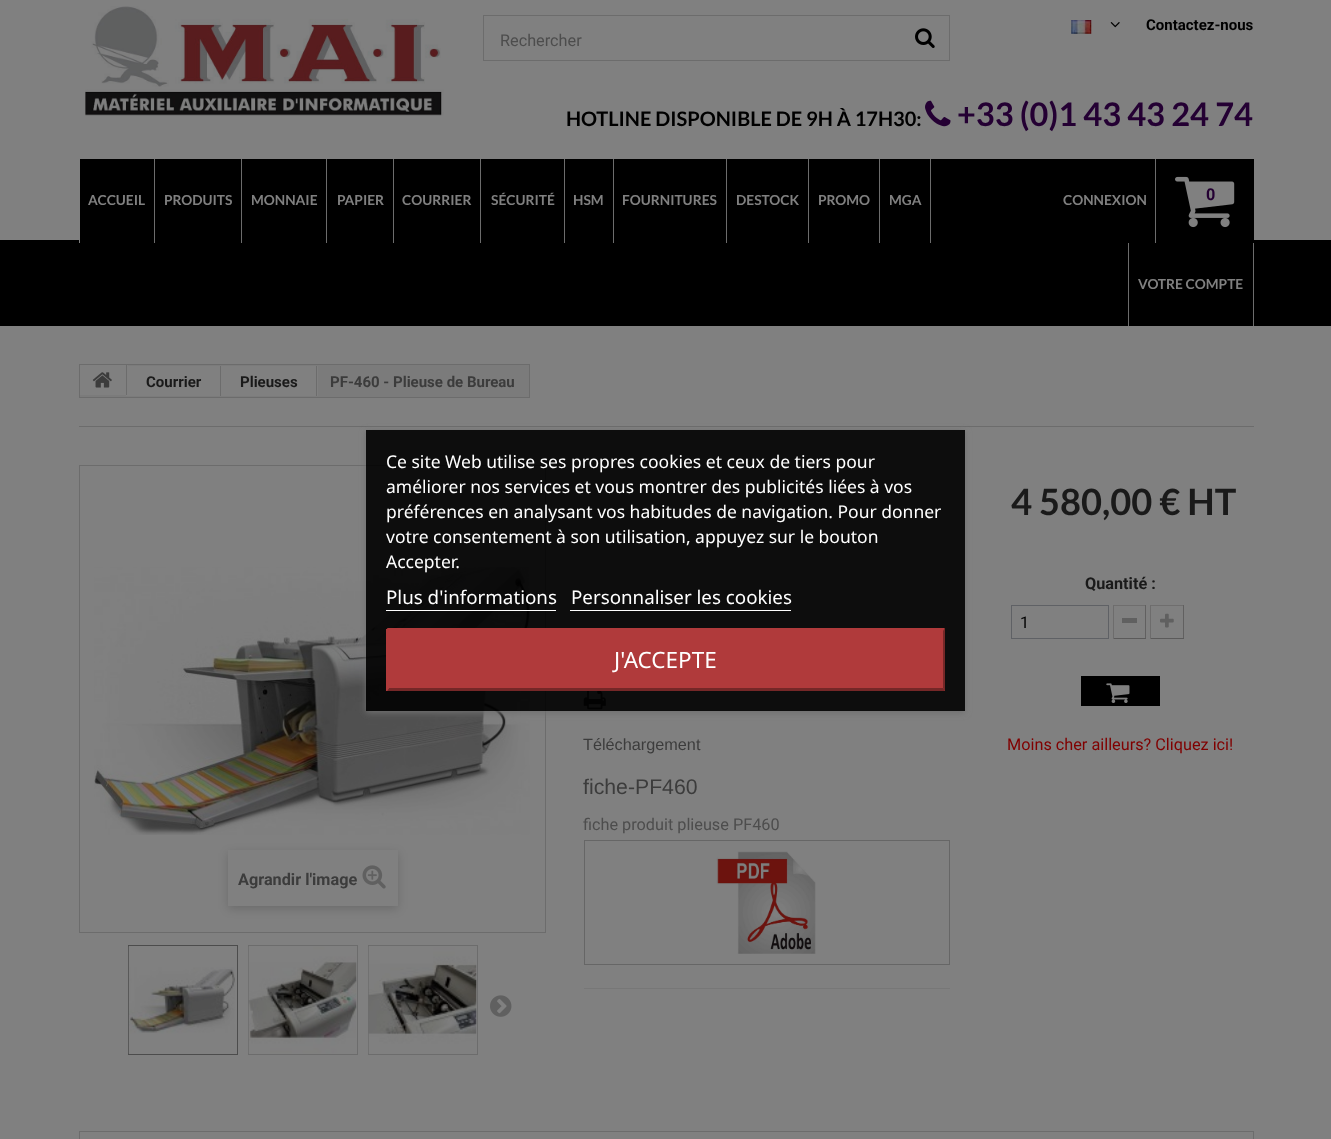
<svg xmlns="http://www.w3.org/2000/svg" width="1331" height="1139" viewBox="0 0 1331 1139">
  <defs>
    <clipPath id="clip1"><path d="M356 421H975V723H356ZM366 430H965V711H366Z" clip-rule="evenodd"/></clipPath>
    <filter id="blur1" x="-50%" y="-200%" width="200%" height="500%"><feGaussianBlur stdDeviation="3"/></filter>
    <clipPath id="clip2"><path d="M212 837H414V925H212ZM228 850H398V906H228Z" clip-rule="evenodd"/></clipPath>
    <filter id="blur2" x="-50%" y="-200%" width="200%" height="500%"><feGaussianBlur stdDeviation="5"/></filter>
  </defs>
  <rect width="100%" height="100%" fill="#808080"/>
  <image x="85" y="6" width="359" height="110" href="img1.png"/>
  <image x="1071" y="20" width="21" height="14" href="img2.png"/>
  <image x="1110" y="22" width="10" height="6" href="img3.png"/>
  <text x="1146" y="30" font-family="Roboto" font-size="15" font-weight="bold" fill="#000000">Contactez-nous</text>
  <rect x="483.5" y="15.5" width="466" height="45" fill="none" stroke="#6c6c6c"/>
  <text x="500" y="46" font-family="Roboto" font-size="16.25" fill="#4d4d4d">Rechercher</text>
  <image x="915" y="28" width="20" height="20" href="img4.png"/>
  <text x="566" y="126" font-family="Lato" font-size="20" font-weight="bold" fill="#000000">HOTLINE DISPONIBLE DE 9H À 17H30:</text>
  <image x="925" y="100" width="26" height="27" href="img5.png"/>
  <text x="957" y="126" font-family="Lato" font-size="32.5" font-weight="bold" fill="#240033">+33 (0)1 43 43 24 74</text>
  <rect x="79" y="159" width="1175" height="81" fill="#000000"/>
  <rect x="0" y="240" width="1331" height="86" fill="#000000"/>
  <rect x="154" y="159" width="1" height="84" fill="#6c6c6c"/>
  <rect x="79" y="159" width="1" height="84" fill="#808080"/>
  <text x="88" y="205" font-family="Lato" font-size="13.75" font-weight="bold" fill="#808080">ACCUEIL</text>
  <rect x="241" y="159" width="1" height="84" fill="#6c6c6c"/>
  <text x="164" y="205" font-family="Lato" font-size="13.75" font-weight="bold" fill="#808080">PRODUITS</text>
  <rect x="326" y="159" width="1" height="84" fill="#6c6c6c"/>
  <text x="251" y="205" font-family="Lato" font-size="13.75" font-weight="bold" fill="#808080">MONNAIE</text>
  <rect x="393" y="159" width="1" height="84" fill="#6c6c6c"/>
  <text x="337" y="205" font-family="Lato" font-size="13.75" font-weight="bold" fill="#808080">PAPIER</text>
  <rect x="480" y="159" width="1" height="84" fill="#6c6c6c"/>
  <text x="402" y="205" font-family="Lato" font-size="13.75" font-weight="bold" fill="#808080">COURRIER</text>
  <rect x="564" y="159" width="1" height="84" fill="#6c6c6c"/>
  <text x="491" y="205" font-family="Lato" font-size="13.75" font-weight="bold" fill="#808080">SÉCURITÉ</text>
  <rect x="613" y="159" width="1" height="84" fill="#6c6c6c"/>
  <text x="573" y="205" font-family="Lato" font-size="13.75" font-weight="bold" fill="#808080">HSM</text>
  <rect x="726" y="159" width="1" height="84" fill="#6c6c6c"/>
  <text x="622" y="205" font-family="Lato" font-size="13.75" font-weight="bold" fill="#808080">FOURNITURES</text>
  <rect x="808" y="159" width="1" height="84" fill="#6c6c6c"/>
  <text x="736" y="205" font-family="Lato" font-size="13.75" font-weight="bold" fill="#808080">DESTOCK</text>
  <rect x="879" y="159" width="1" height="84" fill="#6c6c6c"/>
  <text x="818" y="205" font-family="Lato" font-size="13.75" font-weight="bold" fill="#808080">PROMO</text>
  <rect x="930" y="159" width="1" height="84" fill="#6c6c6c"/>
  <text x="889" y="205" font-family="Lato" font-size="13.75" font-weight="bold" fill="#808080">MGA</text>
  <rect x="1155" y="159" width="1" height="84" fill="#6c6c6c"/>
  <text x="1063" y="205" font-family="Lato" font-size="13.75" font-weight="bold" fill="#808080">CONNEXION</text>
  <image x="1175" y="176" width="60" height="52" href="img6.png"/>
  <text x="1206" y="200" font-family="Roboto" font-size="16.25" font-weight="bold" fill="#240033">0</text>
  <rect x="1253" y="243" width="1" height="83" fill="#6c6c6c"/>
  <rect x="1128" y="243" width="1" height="83" fill="#6c6c6c"/>
  <text x="1138" y="289" font-family="Lato" font-size="13.75" font-weight="bold" fill="#808080">VOTRE COMPTE</text>
  <rect x="79" y="426" width="1175" height="1" fill="#6c6c6c"/>
  <image x="583" y="691" width="23" height="19" href="img10.png"/>
  <rect x="79.5" y="465.5" width="466" height="467" fill="none" stroke="#6c6c6c"/>
  <image x="94" y="567" width="436" height="268" href="img12.png"/>
  <g clip-path="url(#clip1)">
    <rect x="366" y="431" width="599" height="282" fill="#707070" filter="url(#blur1)"/>
  </g>
  <rect x="366" y="430" width="599" height="281" fill="#000000" fill-opacity="0.9"/>
  <text x="386" y="468" font-family="Noto Sans" font-size="17.5" fill="#ffffff">Ce site Web utilise ses propres cookies et ceux de tiers pour</text>
  <text x="386" y="493" font-family="Noto Sans" font-size="17.5" fill="#ffffff">améliorer nos services et vous montrer des publicités liées à vos</text>
  <text x="386" y="518" font-family="Noto Sans" font-size="17.5" fill="#ffffff">préférences en analysant vos habitudes de navigation. Pour donner</text>
  <text x="386" y="543" font-family="Noto Sans" font-size="17.5" fill="#ffffff">votre consentement à son utilisation, appuyez sur le bouton</text>
  <text x="386" y="568" font-family="Noto Sans" font-size="17.5" fill="#ffffff">Accepter.</text>
  <text x="386" y="604" font-family="Noto Sans" font-size="18.75" fill="#ffffff">Plus d'informations</text>
  <rect x="386" y="610" width="170" height="1" fill="#ffffff"/>
  <text x="571" y="604" font-family="Noto Sans" font-size="18.75" fill="#ffffff">Personnaliser les cookies</text>
  <rect x="570" y="610" width="221" height="1" fill="#ffffff"/>
  <rect x="386" y="629" width="559" height="62" fill="#b03a3b"/>
  <path d="M387 628H945L943 631H389Z" fill="#b03a3b"/>
  <path d="M945 628V691L943 688V631Z" fill="#752727"/>
  <path d="M945 691H387L389 688H943Z" fill="#752727"/>
  <path d="M387 691V628L389 631V688Z" fill="#b03a3b"/>
  <text x="614" y="668" font-family="Noto Sans" font-size="22.5" fill="#ffffff">J'ACCEPTE</text>
  <rect x="79.5" y="364.5" width="450" height="33" fill="#7b7b7b" stroke="#6c6c6c"/>
  <rect x="126" y="366" width="94" height="30" fill="#808080"/>
  <rect x="80" y="365" width="48" height="30" fill="#808080"/>
  <rect x="126" y="365" width="1" height="30" fill="#6c6c6c"/>
  <image x="92" y="372" width="20" height="16" href="img7.png"/>
  <rect x="220" y="366" width="1" height="30" fill="#6c6c6c"/>
  <text x="146" y="387" font-family="Roboto" font-size="15" font-weight="bold" fill="#1a1a1a">Courrier</text>
  <rect x="221" y="366" width="97" height="30" fill="#808080"/>
  <rect x="316" y="366" width="1" height="30" fill="#6c6c6c"/>
  <text x="240" y="387" font-family="Roboto" font-size="15" font-weight="bold" fill="#1a1a1a">Plieuses</text>
  <text x="330" y="387" font-family="Roboto" font-size="15" font-weight="bold" fill="#3c3c3c">PF-460 - Plieuse de Bureau</text>
  <text x="1011" y="515" font-family="Lato" font-size="36.25" font-weight="bold" fill="#1a1a1a">4 580,00 € HT</text>
  <text x="1085" y="589" font-family="Roboto" font-size="16.25" font-weight="bold" fill="#1a1a1a">Quantité :</text>
  <rect x="1011.5" y="605.5" width="97" height="33" fill="none" stroke="#5f6165"/>
  <text x="1020" y="628" font-family="Roboto" font-size="16.25" fill="#000000">1</text>
  <rect x="1113" y="605" width="33" height="1" fill="#6f6e6e"/>
  <rect x="1145" y="605" width="1" height="34" fill="#616060"/>
  <rect x="1113" y="638" width="33" height="1" fill="#5b5a5a"/>
  <rect x="1113" y="605" width="1" height="34" fill="#6d6c6c"/>
  <rect x="1122" y="618" width="15" height="5" fill="#606060"/>
  <rect x="1150" y="605" width="34" height="1" fill="#6f6e6e"/>
  <rect x="1183" y="605" width="1" height="34" fill="#616060"/>
  <rect x="1150" y="638" width="34" height="1" fill="#5b5a5a"/>
  <rect x="1150" y="605" width="1" height="34" fill="#6d6c6c"/>
  <image x="1160" y="613" width="14" height="15" href="img8.png"/>
  <rect x="1081" y="676" width="79" height="30" fill="#000000"/>
  <image x="1106" y="683" width="24" height="20" href="img9.png"/>
  <text x="1007" y="750" font-family="Roboto" font-size="16.25" fill="#800000">Moins cher ailleurs? Cliquez ici!</text>
  <text x="583" y="750" font-family="Liberation Sans" font-size="16.25" fill="#3c3c3c">Téléchargement</text>
  <text x="583" y="794" font-family="Liberation Sans" font-size="21.25" fill="#3c3c3c">fiche-PF460</text>
  <text x="583" y="830" font-family="Roboto" font-size="16.25" fill="#4d4d4d">fiche produit plieuse PF460</text>
  <rect x="584.5" y="840.5" width="365" height="124" fill="none" stroke="#666666"/>
  <image x="716" y="851" width="100" height="103" href="img11.png"/>
  <rect x="584" y="988" width="366" height="1" fill="#777777"/>
  <g clip-path="url(#clip2)">
    <rect x="228" y="853" width="170" height="56" fill="#000000" fill-opacity="0.16" filter="url(#blur2)"/>
  </g>
  <rect x="397" y="861" width="1" height="40" fill="#808080" fill-opacity="0.5"/>
  <text x="238" y="885" font-family="Roboto" font-size="16.25" font-weight="bold" fill="#3c3c3c">Agrandir l'image</text>
  <image x="362" y="865" width="24" height="24" href="img13.png"/>
  <rect x="128.5" y="945.5" width="109" height="109" fill="none" stroke="#4c4c4c"/>
  <image x="128" y="946" width="107" height="108" href="img14.png"/>
  <rect x="248.5" y="945.5" width="109" height="109" fill="none" stroke="#6c6c6c"/>
  <image x="248" y="946" width="109" height="108" href="img15.png"/>
  <rect x="368.5" y="945.5" width="109" height="109" fill="none" stroke="#6c6c6c"/>
  <image x="368" y="946" width="109" height="108" href="img16.png"/>
  <image x="490" y="995" width="22" height="22" href="img17.png"/>
  <rect x="79.5" y="1131.5" width="1174" height="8" fill="none" stroke="#6c6c6c"/>
</svg>
